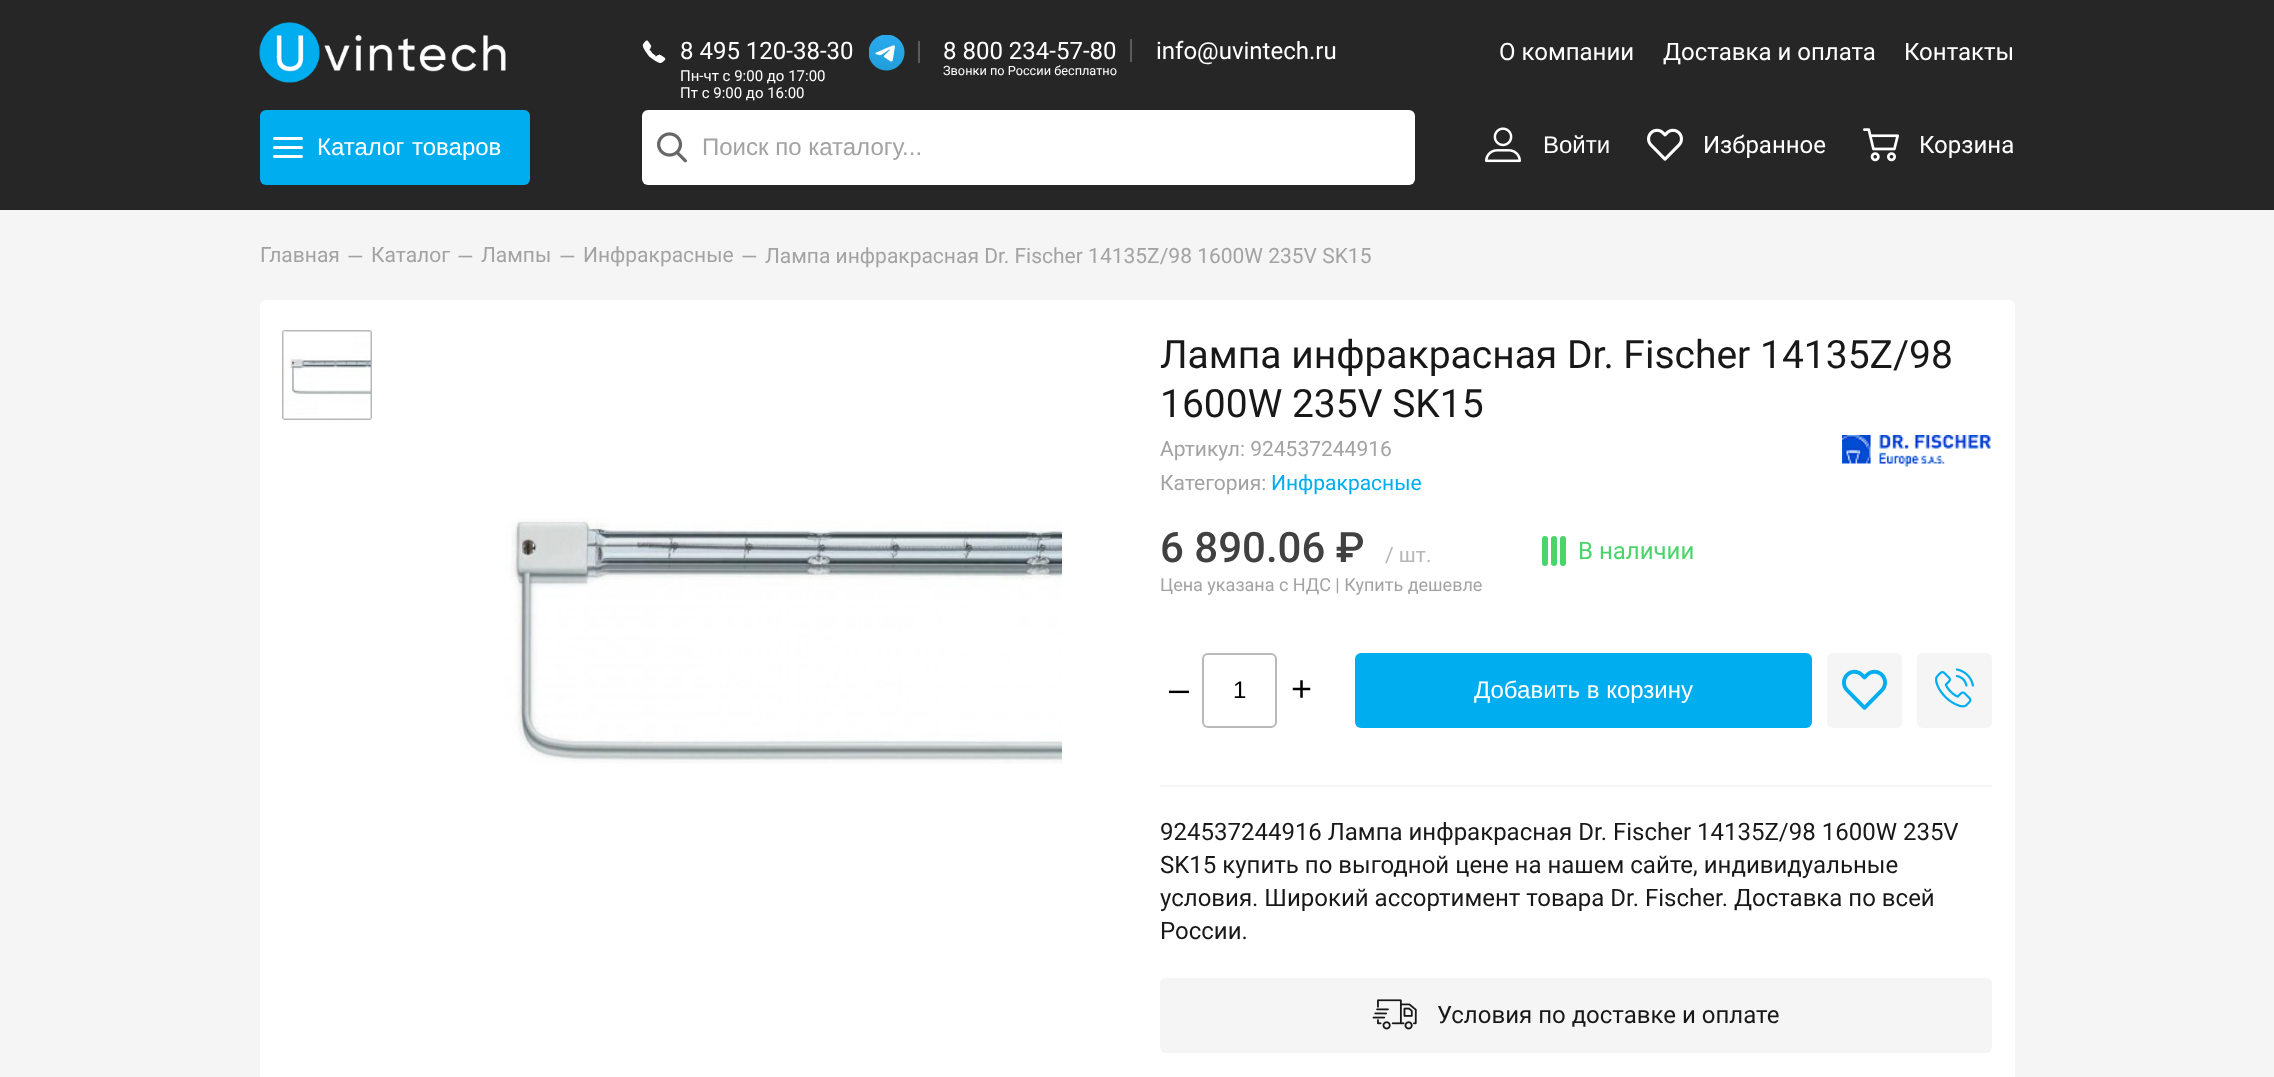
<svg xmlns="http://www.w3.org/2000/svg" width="2274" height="1077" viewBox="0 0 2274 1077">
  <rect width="100%" height="100%" fill="#f5f5f5"/>
  <rect x="0" y="0" width="2274" height="210" fill="#262626"/>
  <image x="259" y="22" width="247" height="61" href="img1.png"/>
  <image x="642" y="40" width="24" height="23" href="img2.png"/>
  <text x="680" y="59" font-family="Roboto" font-size="24" fill="#ffffff">8 495 120-38-30</text>
  <image x="869" y="35" width="36" height="36" href="img3.png"/>
  <rect x="918" y="41" width="2" height="22" fill="#5c5c5c"/>
  <text x="680" y="81" font-family="Roboto" font-size="15" fill="#ffffff">Пн-чт с 9:00 до 17:00</text>
  <text x="680" y="98" font-family="Roboto" font-size="15" fill="#ffffff">Пт с 9:00 до 16:00</text>
  <text x="943" y="59" font-family="Roboto" font-size="24" fill="#ffffff">8 800 234-57-80</text>
  <rect x="1130" y="39" width="2" height="23" fill="#5c5c5c"/>
  <text x="943" y="75" font-family="Roboto" font-size="12.75" fill="#ffffff">Звонки по России бесплатно</text>
  <text x="1156" y="59" font-family="Roboto" font-size="24" fill="#ffffff">info@uvintech.ru</text>
  <text x="1499" y="60" font-family="Roboto" font-size="24" fill="#ffffff">О компании</text>
  <text x="1663" y="60" font-family="Roboto" font-size="24" fill="#ffffff">Доставка и оплата</text>
  <text x="1904" y="60" font-family="Roboto" font-size="24" fill="#ffffff">Контакты</text>
  <rect x="260" y="110" width="270" height="75" rx="6" fill="#00adef"/>
  <rect x="273" y="155" width="30" height="3" rx="1.5" fill="#ffffff"/>
  <rect x="273" y="137" width="30" height="3" rx="1.5" fill="#ffffff"/>
  <rect x="273" y="146" width="30" height="3" rx="1.5" fill="#ffffff"/>
  <text x="317" y="155" font-family="Liberation Sans" font-size="24" fill="#ffffff">Каталог</text>
  <text x="412" y="155" font-family="Liberation Sans" font-size="24" fill="#ffffff">товаров</text>
  <rect x="642" y="110" width="773" height="75" rx="6" fill="#ffffff"/>
  <image x="657" y="132" width="30" height="31" href="img4.png"/>
  <text x="702" y="155" font-family="Liberation Sans" font-size="24" fill="#a3a3a3">Поиск по каталогу...</text>
  <image x="1485" y="127" width="36" height="36" href="img5.png"/>
  <text x="1543" y="153" font-family="Liberation Sans" font-size="24" fill="#ffffff">Войти</text>
  <image x="1647" y="128" width="36" height="33" href="img6.png"/>
  <text x="1703" y="153" font-family="Roboto" font-size="24" fill="#ffffff">Избранное</text>
  <image x="1863" y="128" width="36" height="34" href="img7.png"/>
  <text x="1919" y="153" font-family="Roboto" font-size="24" fill="#ffffff">Корзина</text>
  <text x="260" y="262" font-family="Roboto" font-size="21" fill="#a3a3a3">Главная</text>
  <text x="347" y="264" font-family="Roboto" font-size="21" fill="#a3a3a3">—</text>
  <text x="371" y="262" font-family="Roboto" font-size="21" fill="#a3a3a3">Каталог</text>
  <text x="457" y="264" font-family="Roboto" font-size="21" fill="#a3a3a3">—</text>
  <text x="481" y="262" font-family="Roboto" font-size="21" fill="#a3a3a3">Лампы</text>
  <text x="559" y="264" font-family="Roboto" font-size="21" fill="#a3a3a3">—</text>
  <text x="583" y="262" font-family="Roboto" font-size="21" fill="#a3a3a3">Инфракрасные</text>
  <text x="741" y="264" font-family="Roboto" font-size="21" fill="#a3a3a3">—</text>
  <text x="765" y="263" font-family="Roboto" font-size="21" fill="#a3a3a3">Лампа инфракрасная Dr. Fischer 14135Z/98 1600W 235V SK15</text>
  <rect x="260" y="300" width="1755" height="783" rx="6" fill="#ffffff"/>
  <rect x="283" y="331" width="88" height="88" rx="2" fill="none" stroke="#b7b7b7" stroke-width="2"/>
  <image x="283" y="331" width="88" height="88" href="img8.png"/>
  <image x="505" y="518" width="557" height="246" href="img9.png"/>
  <text x="1160" y="368" font-family="Roboto" font-size="39" fill="#181818">Лампа инфракрасная Dr. Fischer 14135Z/98</text>
  <text x="1160" y="417" font-family="Roboto" font-size="39" fill="#181818">1600W 235V SK15</text>
  <text x="1160" y="456" font-family="Roboto" font-size="21" fill="#a3a3a3">Артикул: 924537244916</text>
  <text x="1160" y="490" font-family="Roboto" font-size="21" fill="#a3a3a3">Категория:</text>
  <text x="1271" y="490" font-family="Roboto" font-size="21" fill="#00adef">Инфракрасные</text>
  <image x="1842" y="435" width="149" height="32" href="img10.png"/>
  <text x="1160" y="562" font-family="Roboto" font-size="42" font-weight="500" fill="#414141">6 890.06 ₽</text>
  <text x="1385" y="562" font-family="Roboto" font-size="21" fill="#b7b7b7">/ шт.</text>
  <text x="1160" y="591" font-family="Roboto" font-size="18" fill="#a3a3a3">Цена указана с НДС | Купить дешевле</text>
  <rect x="1551" y="536" width="6" height="30" rx="3" fill="#4bd46a"/>
  <rect x="1542" y="536" width="6" height="30" rx="3" fill="#4bd46a"/>
  <rect x="1560" y="536" width="6" height="30" rx="3" fill="#4bd46a"/>
  <text x="1578" y="559" font-family="Roboto" font-size="24" fill="#4bd46a">В наличии</text>
  <text x="1169" y="701" font-family="Liberation Sans" font-size="36" fill="#000000">–</text>
  <rect x="1203" y="654" width="73" height="73" rx="5" fill="none" stroke="#b9b9b9" stroke-width="2"/>
  <text x="1233" y="698" font-family="Liberation Sans" font-size="24" fill="#000000">1</text>
  <text x="1291" y="701" font-family="Liberation Sans" font-size="36" fill="#000000">+</text>
  <rect x="1355" y="653" width="457" height="75" rx="6" fill="#00adef"/>
  <text x="1474" y="698" font-family="Liberation Sans" font-size="24" fill="#ffffff">Добавить в корзину</text>
  <rect x="1827" y="653" width="75" height="75" rx="6" fill="#f5f5f5"/>
  <image x="1842" y="669" width="45" height="41" href="img11.png"/>
  <rect x="1917" y="653" width="75" height="75" rx="6" fill="#f5f5f5"/>
  <image x="1935" y="668" width="39" height="40" href="img12.png"/>
  <rect x="1160" y="785" width="832" height="2" fill="#f5f5f5"/>
  <text x="1160" y="840" font-family="Roboto" font-size="24" fill="#181818">924537244916 Лампа инфракрасная Dr. Fischer 14135Z/98 1600W 235V</text>
  <text x="1160" y="873" font-family="Roboto" font-size="24" fill="#181818">SK15 купить по выгодной цене на нашем сайте, индивидуальные</text>
  <text x="1160" y="906" font-family="Roboto" font-size="24" fill="#181818">условия. Широкий ассортимент товара Dr. Fischer. Доставка по всей</text>
  <text x="1160" y="939" font-family="Roboto" font-size="24" fill="#181818">России.</text>
  <rect x="1160" y="978" width="832" height="75" rx="6" fill="#f5f5f5"/>
  <image x="1372" y="999" width="45" height="31" href="img13.png"/>
  <text x="1437" y="1023" font-family="Roboto" font-size="24" fill="#181818">Условия по доставке и оплате</text>
</svg>
